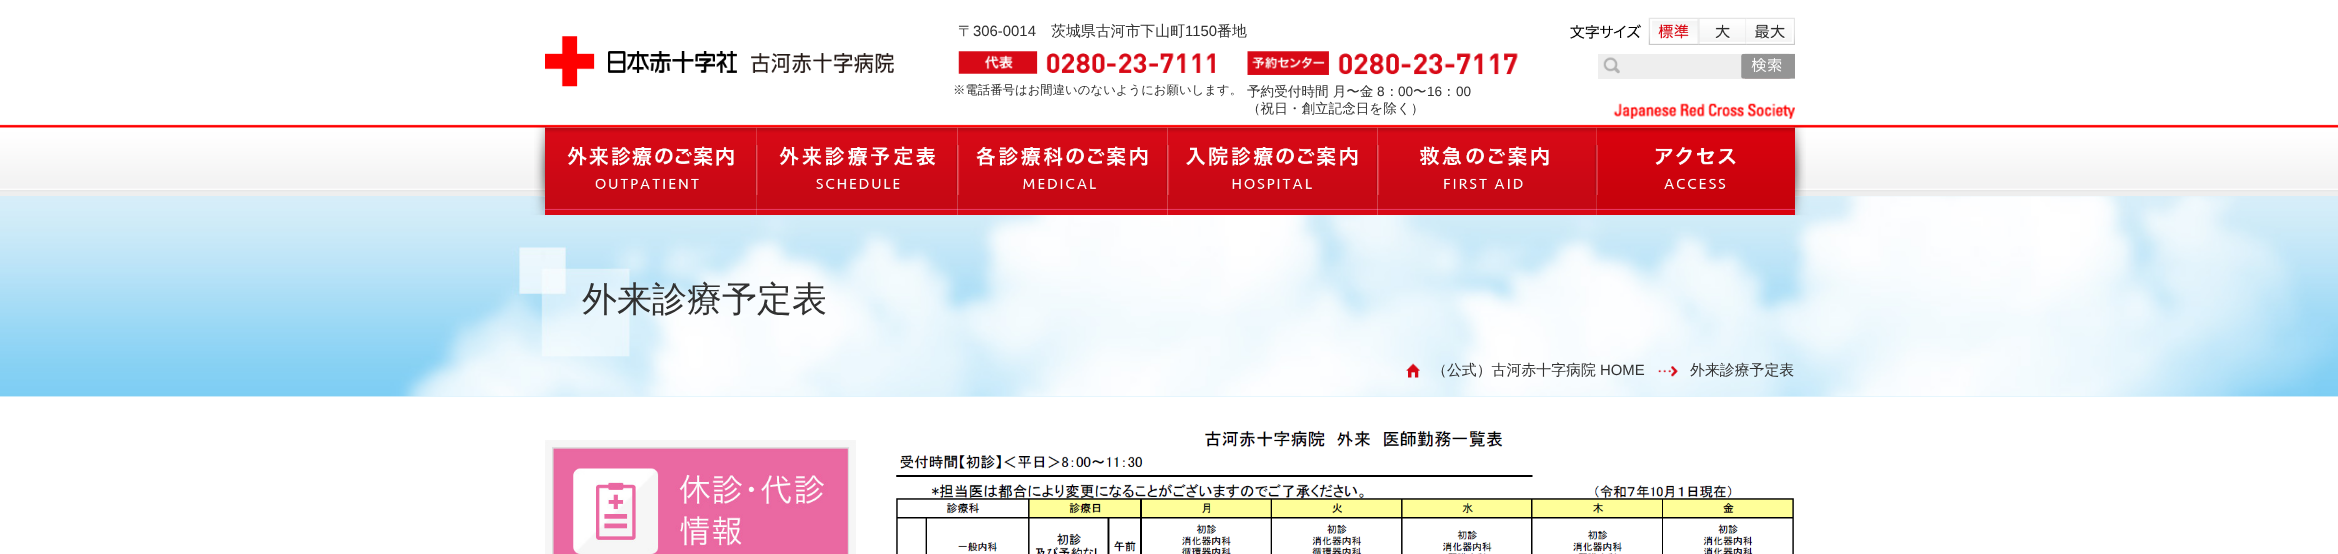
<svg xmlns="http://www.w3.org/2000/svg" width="2338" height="554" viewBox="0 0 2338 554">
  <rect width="100%" height="100%" fill="#ffffff"/>
  <image x="0" y="124" width="2338" height="73" href="img1.png"/>
  <image x="0" y="196" width="2338" height="1" href="img2.png"/>
  <image x="534" y="126" width="1272" height="71" href="img3.png"/>
  <image x="545" y="36" width="349" height="51" href="img4.png"/>
  <text x="958" y="36" font-family="WenQuanYi Zen Hei" font-size="14.9" font-weight="500" fill="#313131">〒</text>
  <text x="973" y="36" font-family="Liberation Sans" font-size="14.9" fill="#313131">306-0014</text>
  <text x="1051" y="36" font-family="WenQuanYi Zen Hei" font-size="14.9" font-weight="500" fill="#313131">茨城県古河市下山町</text>
  <text x="1185" y="36" font-family="Liberation Sans" font-size="14.9" fill="#313131">1150</text>
  <text x="1217" y="36" font-family="WenQuanYi Zen Hei" font-size="14.9" font-weight="500" fill="#313131">番地</text>
  <image x="958" y="51" width="257" height="23" href="img5.png"/>
  <text x="953" y="94" font-family="WenQuanYi Zen Hei" font-size="12.4" font-weight="500" fill="#313131">※電話番号はお間違いのないようにお願いします。</text>
  <image x="1247" y="51" width="271" height="24" href="img6.png"/>
  <text x="1247" y="96" font-family="WenQuanYi Zen Hei" font-size="13.6" font-weight="500" fill="#313131">予約受付時間 月〜金</text>
  <text x="1377" y="96" font-family="Liberation Sans" font-size="13.6" fill="#313131">8</text>
  <text x="1385" y="96" font-family="WenQuanYi Zen Hei" font-size="13.6" font-weight="500" fill="#313131">：</text>
  <text x="1398" y="96" font-family="Liberation Sans" font-size="13.6" fill="#313131">00</text>
  <text x="1413" y="96" font-family="WenQuanYi Zen Hei" font-size="13.6" font-weight="500" fill="#313131">〜</text>
  <text x="1427" y="96" font-family="Liberation Sans" font-size="13.6" fill="#313131">16</text>
  <text x="1442" y="96" font-family="WenQuanYi Zen Hei" font-size="13.6" font-weight="500" fill="#313131">：</text>
  <text x="1456" y="96" font-family="Liberation Sans" font-size="13.6" fill="#313131">00</text>
  <text x="1247" y="113" font-family="WenQuanYi Zen Hei" font-size="13.6" font-weight="500" fill="#313131">（祝日・創立記念日を除く）</text>
  <image x="1613" y="103" width="182" height="16" href="img7.png"/>
  <image x="1570" y="24" width="72" height="15" href="img8.png"/>
  <image x="1648" y="17" width="51" height="28" href="img9.png"/>
  <image x="1698" y="17" width="49" height="28" href="img10.png"/>
  <image x="1746" y="17" width="49" height="28" href="img11.png"/>
  <rect x="1598" y="54" width="197" height="25" fill="#eeeeee"/>
  <image x="1603" y="57" width="17" height="17" href="img12.png"/>
  <image x="1745" y="53" width="50" height="26" href="img13.png"/>
  <image x="1741" y="53" width="50" height="26" href="img14.png"/>
  <image x="0" y="196" width="2338" height="201" href="img21.png"/>
  <image x="0" y="196" width="2338" height="201" href="img22.png"/>
  <image x="545" y="127" width="212" height="88" href="img15.png"/>
  <image x="756" y="127" width="202" height="88" href="img16.png"/>
  <image x="957" y="127" width="211" height="88" href="img17.png"/>
  <image x="1167" y="127" width="211" height="88" href="img18.png"/>
  <image x="1377" y="127" width="220" height="88" href="img19.png"/>
  <image x="1596" y="127" width="199" height="88" href="img20.png"/>
  <text x="582" y="311" font-family="WenQuanYi Zen Hei" font-size="35" font-weight="500" fill="#313131">外来診療予定表</text>
  <image x="1658" y="366" width="20" height="11" href="img23.png"/>
  <image x="1406" y="363" width="14" height="15" href="img24.png"/>
  <text x="1432" y="375" font-family="WenQuanYi Zen Hei" font-size="14.9" font-weight="500" fill="#313131">（公式）古河赤十字病院</text>
  <text x="1600" y="375" font-family="Liberation Sans" font-size="14.9" fill="#313131">HOME</text>
  <text x="1690" y="375" font-family="WenQuanYi Zen Hei" font-size="14.9" font-weight="500" fill="#313131">外来診療予定表</text>
  <image x="545" y="440" width="311" height="114" href="img25.png"/>
  <image x="896" y="430" width="898" height="124" href="img26.png"/>
</svg>
